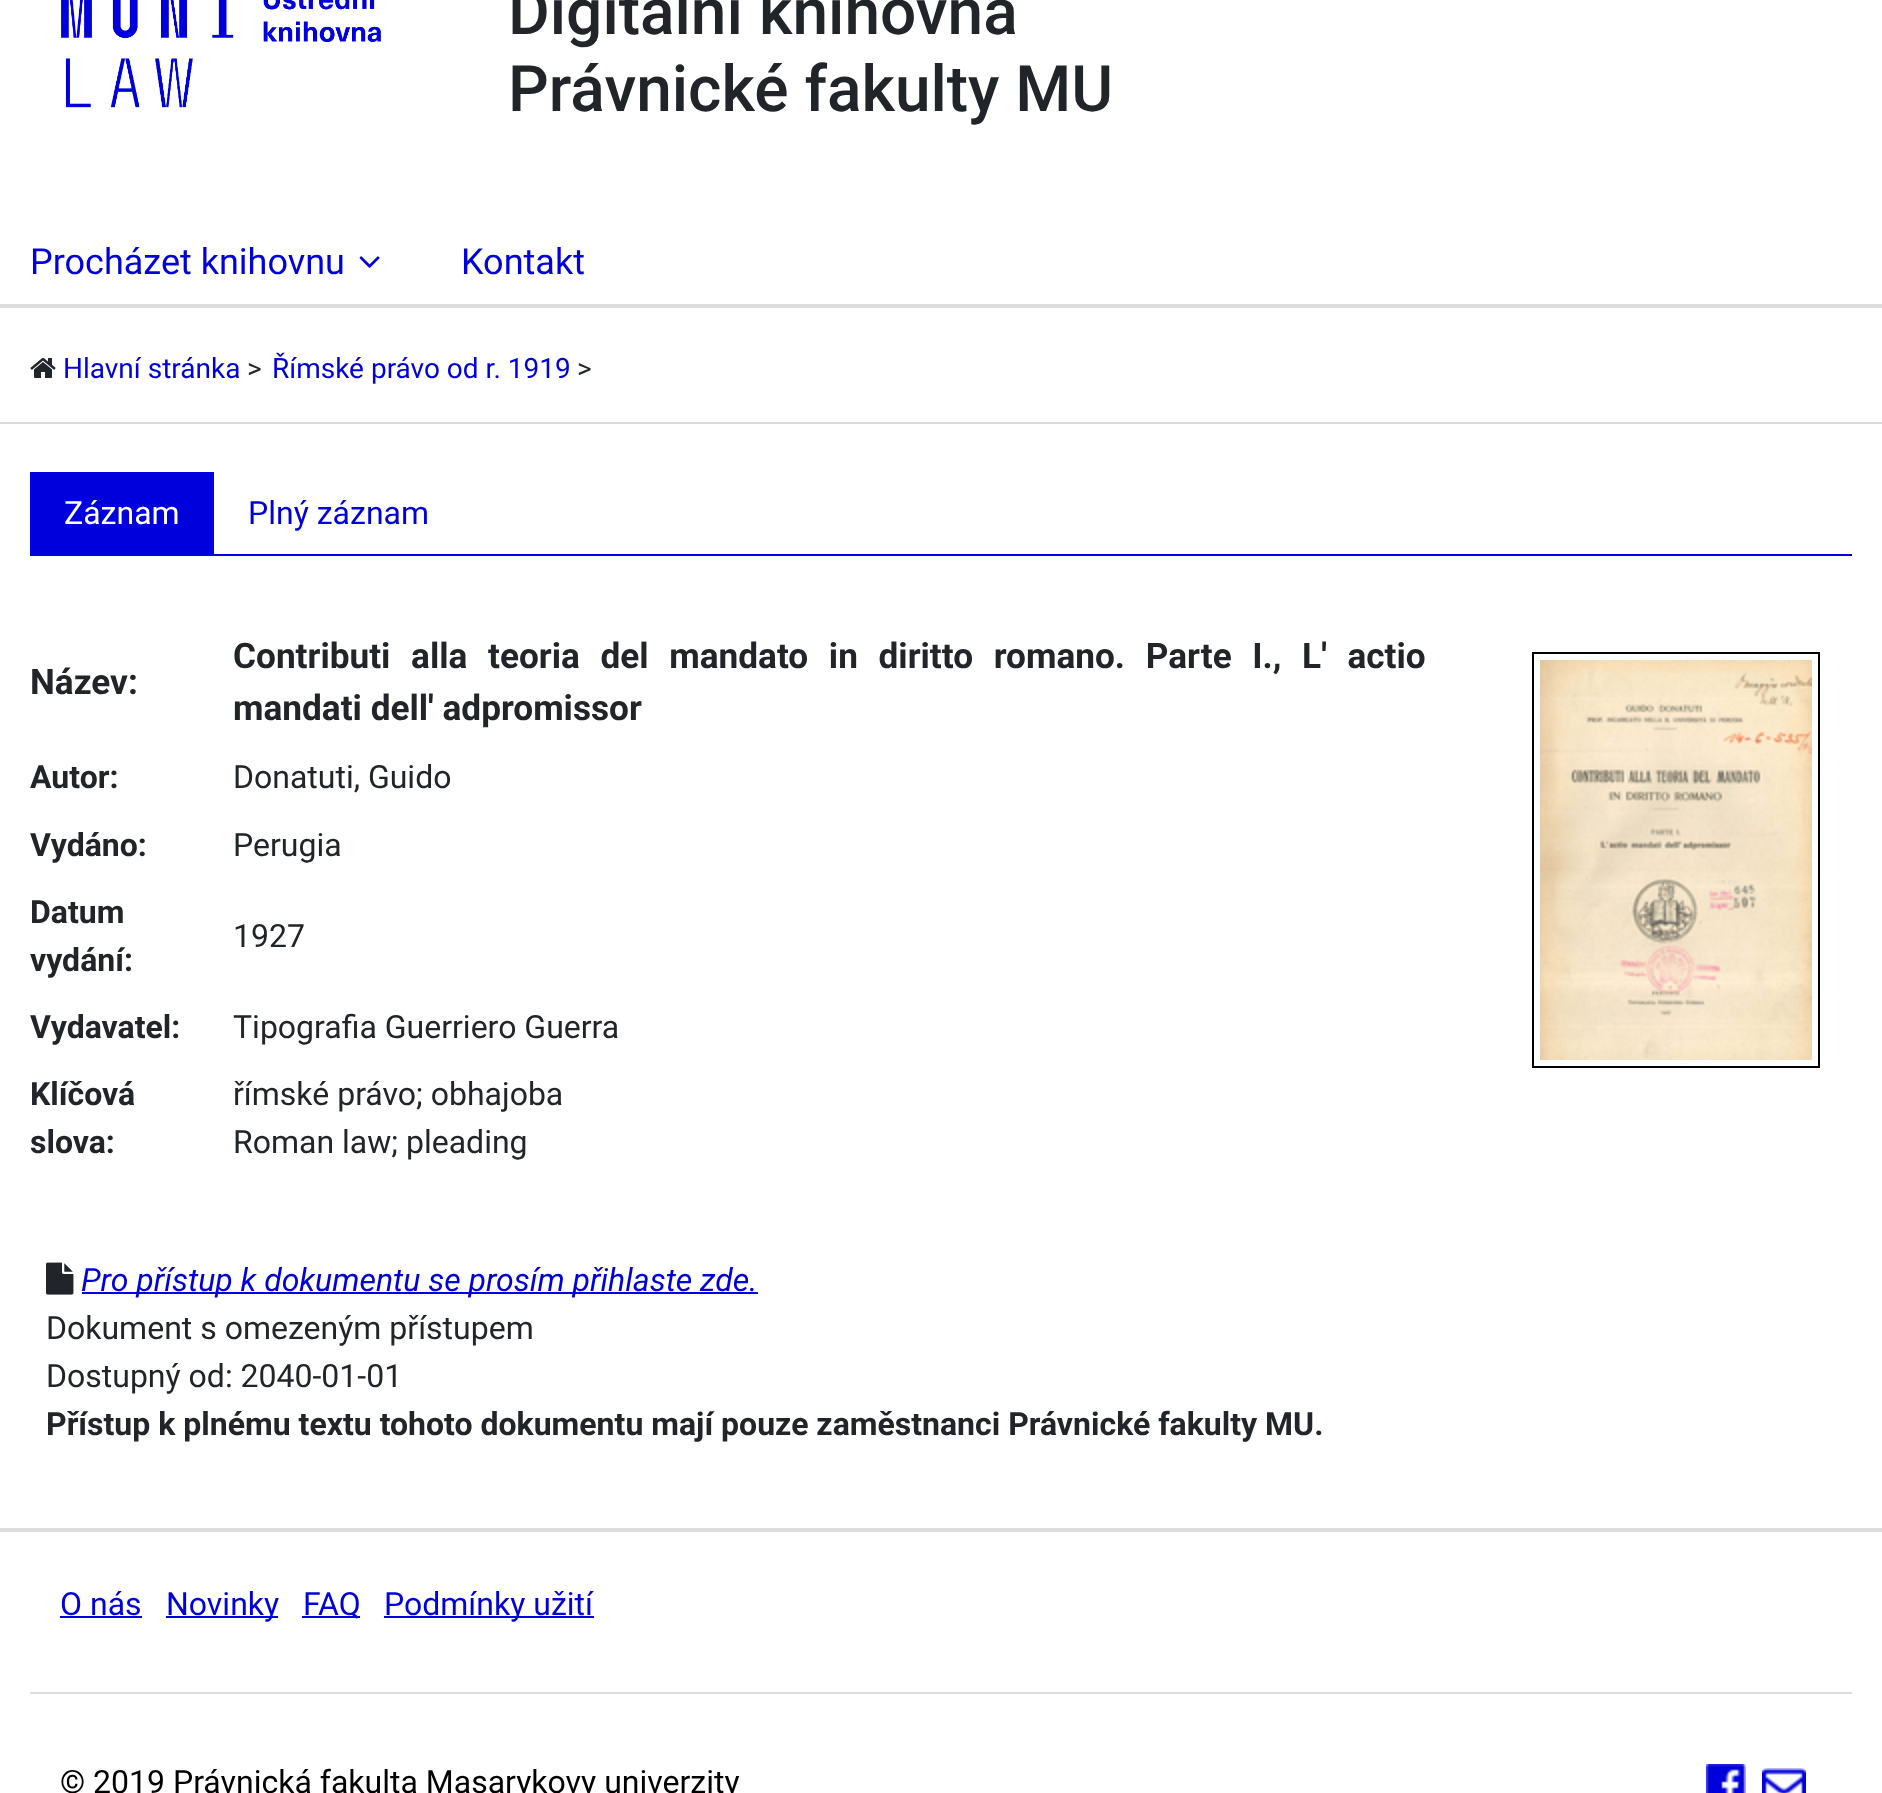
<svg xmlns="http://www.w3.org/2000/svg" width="1882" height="1793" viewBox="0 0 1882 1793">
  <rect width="100%" height="100%" fill="#ffffff"/>
  <image x="61" y="0" width="320" height="108" href="img1.png"/>
  <text x="508" y="34" font-family="Roboto" font-size="64" font-weight="500" fill="#212529">Digitální knihovna</text>
  <text x="508" y="111" font-family="Roboto" font-size="64" font-weight="500" fill="#212529">Právnické fakulty MU</text>
  <text x="30" y="274" font-family="Roboto" font-size="36" fill="#0000dc">Procházet knihovnu</text>
  <image x="359" y="256" width="21" height="12" href="img2.png"/>
  <text x="461" y="274" font-family="Roboto" font-size="36" fill="#0000dc">Kontakt</text>
  <rect x="0" y="304" width="1882" height="4" fill="#dcdcdc"/>
  <image x="30" y="358" width="26" height="20" href="img3.png"/>
  <text x="63" y="378" font-family="Roboto" font-size="28" fill="#0000dc">Hlavní stránka</text>
  <text x="247" y="378" font-family="Roboto" font-size="28" fill="#212529">&gt;</text>
  <text x="272" y="378" font-family="Roboto" font-size="28" fill="#0000dc">Římské právo od r. 1919</text>
  <text x="577" y="378" font-family="Roboto" font-size="28" fill="#212529">&gt;</text>
  <rect x="0" y="422" width="1882" height="2" fill="#dcdcdc"/>
  <rect x="214" y="554" width="1638" height="2" fill="#0000dc"/>
  <rect x="30" y="472" width="184" height="84" fill="#0000dc"/>
  <text x="64" y="524" font-family="Roboto" font-size="32" fill="#ffffff">Záznam</text>
  <text x="248" y="524" font-family="Roboto" font-size="32" fill="#0000dc">Plný záznam</text>
  <text x="30" y="694" font-family="Roboto" font-size="35.2" font-weight="bold" fill="#212529">Název:</text>
  <text x="233" y="668" word-spacing="11.9" font-family="Roboto" font-size="35.2" font-weight="bold" fill="#212529">Contributi alla teoria del mandato in diritto romano. Parte I., L' actio</text>
  <text x="233" y="720" font-family="Roboto" font-size="35.2" font-weight="bold" fill="#212529">mandati dell' adpromissor</text>
  <text x="30" y="788" font-family="Roboto" font-size="32" font-weight="bold" fill="#212529">Autor:</text>
  <text x="233" y="788" font-family="Roboto" font-size="32" fill="#212529">Donatuti, Guido</text>
  <text x="30" y="856" font-family="Roboto" font-size="32" font-weight="bold" fill="#212529">Vydáno:</text>
  <text x="233" y="856" font-family="Roboto" font-size="32" fill="#212529">Perugia</text>
  <text x="30" y="923" font-family="Roboto" font-size="32" font-weight="bold" fill="#212529">Datum</text>
  <text x="30" y="971" font-family="Roboto" font-size="32" font-weight="bold" fill="#212529">vydání:</text>
  <text x="233" y="947" font-family="Roboto" font-size="32" fill="#212529">1927</text>
  <text x="30" y="1038" font-family="Roboto" font-size="32" font-weight="bold" fill="#212529">Vydavatel:</text>
  <text x="233" y="1038" font-family="Roboto" font-size="32" fill="#212529">Tipografia Guerriero Guerra</text>
  <text x="30" y="1105" font-family="Roboto" font-size="32" font-weight="bold" fill="#212529">Klíčová</text>
  <text x="30" y="1153" font-family="Roboto" font-size="32" font-weight="bold" fill="#212529">slova:</text>
  <text x="233" y="1105" font-family="Roboto" font-size="32" fill="#212529">římské právo; obhajoba</text>
  <text x="233" y="1153" font-family="Roboto" font-size="32" fill="#212529">Roman law; pleading</text>
  <image x="46" y="1262" width="28" height="33" href="img4.png"/>
  <rect x="82" y="1292" width="676" height="2" fill="#0000dc"/>
  <text x="81" y="1291" font-family="Roboto" font-size="32" font-style="italic" fill="#0000dc">Pro přístup k dokumentu se prosím přihlaste zde.</text>
  <text x="46" y="1339" font-family="Roboto" font-size="32" fill="#212529">Dokument s omezeným přístupem</text>
  <text x="46" y="1387" font-family="Roboto" font-size="32" fill="#212529">Dostupný od: 2040-01-01</text>
  <text x="46" y="1435" font-family="Roboto" font-size="32" font-weight="bold" fill="#212529">Přístup k plnému textu tohoto dokumentu mají pouze zaměstnanci Právnické fakulty MU.</text>
  <rect x="1533" y="653" width="286" height="414" fill="none" stroke="#000000" stroke-width="2"/>
  <image x="1540" y="660" width="272" height="400" href="img5.png"/>
  <rect x="0" y="1528" width="1882" height="4" fill="#dcdcdc"/>
  <rect x="30" y="1692" width="1822" height="2" fill="#dcdcdc"/>
  <text x="60" y="1615" font-family="Roboto" font-size="32" fill="#0000dc">O nás</text>
  <rect x="60" y="1616" width="82" height="2" fill="#0000dc"/>
  <rect x="166" y="1616" width="112" height="2" fill="#0000dc"/>
  <text x="166" y="1615" font-family="Roboto" font-size="32" fill="#0000dc">Novinky</text>
  <rect x="302" y="1616" width="58" height="2" fill="#0000dc"/>
  <text x="303" y="1615" font-family="Roboto" font-size="32" fill="#0000dc">FAQ</text>
  <rect x="384" y="1616" width="210" height="2" fill="#0000dc"/>
  <text x="384" y="1615" font-family="Roboto" font-size="32" fill="#0000dc">Podmínky užití</text>
  <text x="60" y="1793" font-family="Roboto" font-size="32" fill="#000000">© 2019 Právnická fakulta Masarykovy univerzity</text>
  <image x="1706" y="1764" width="40" height="29" href="img6.png"/>
  <image x="1762" y="1768" width="44" height="25" href="img7.png"/>
</svg>
